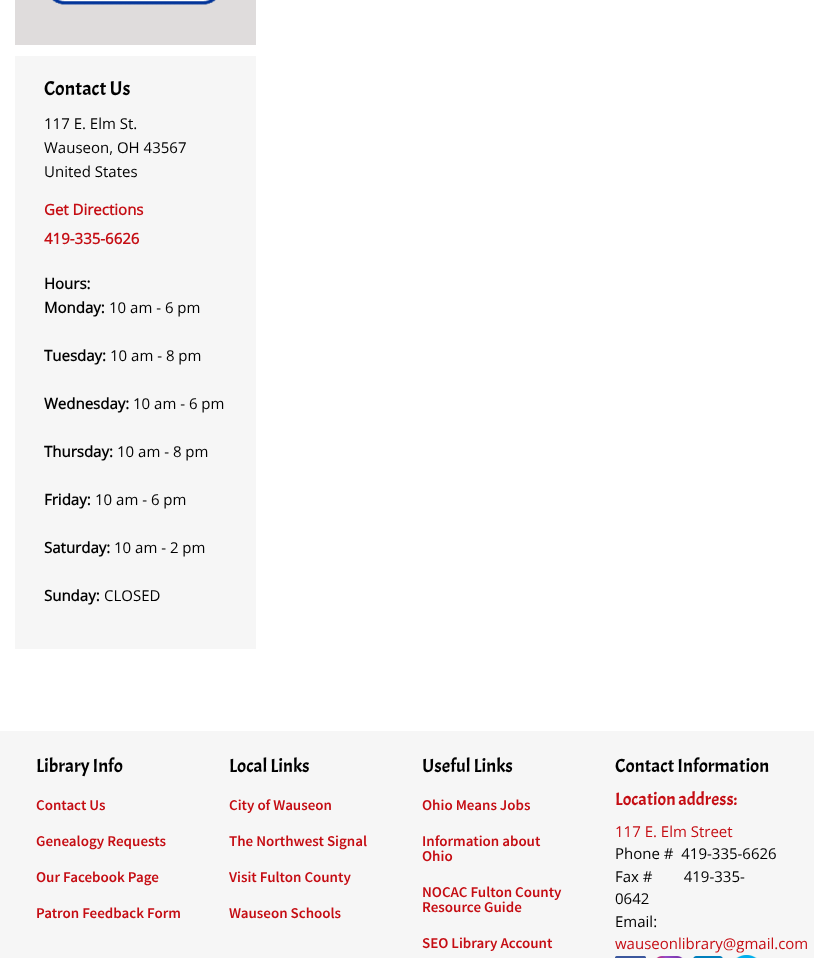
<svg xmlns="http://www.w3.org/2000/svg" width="814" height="958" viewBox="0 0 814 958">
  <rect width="100%" height="100%" fill="#ffffff"/>
  <rect x="15" y="0" width="241" height="45" fill="#dfdcdc"/>
  <image x="52" y="0" width="164" height="5" href="img1.png"/>
  <rect x="15" y="56" width="241" height="593" fill="#f6f6f6"/>
  <text x="44" y="95" font-family="Acme" font-size="20" fill="#000000">Contact Us</text>
  <text x="44" y="129" font-family="Open Sans" font-size="15" fill="#000000">117 E. Elm St.</text>
  <text x="44" y="153" font-family="Open Sans" font-size="15" fill="#000000">Wauseon, OH 43567</text>
  <text x="44" y="177" font-family="Open Sans" font-size="15" fill="#000000">United States</text>
  <text x="44" y="215" font-family="Open Sans" font-size="15" font-weight="bold" fill="#c50d13">Get Directions</text>
  <text x="44" y="244" font-family="Open Sans" font-size="15" font-weight="bold" fill="#c50d13">419-335-6626</text>
  <text x="44" y="289" font-family="Open Sans" font-size="15" font-weight="bold" fill="#000000">Hours:</text>
  <text x="44" y="313" font-family="Open Sans" font-size="15" font-weight="bold" fill="#000000">Monday:</text>
  <text x="109" y="313" font-family="Open Sans" font-size="15" fill="#000000">10 am - 6 pm</text>
  <text x="44" y="361" font-family="Open Sans" font-size="15" font-weight="bold" fill="#000000">Tuesday:</text>
  <text x="110" y="361" font-family="Open Sans" font-size="15" fill="#000000">10 am - 8 pm</text>
  <text x="44" y="409" font-family="Open Sans" font-size="15" font-weight="bold" fill="#000000">Wednesday:</text>
  <text x="133" y="409" font-family="Open Sans" font-size="15" fill="#000000">10 am - 6 pm</text>
  <text x="44" y="457" font-family="Open Sans" font-size="15" font-weight="bold" fill="#000000">Thursday:</text>
  <text x="117" y="457" font-family="Open Sans" font-size="15" fill="#000000">10 am - 8 pm</text>
  <text x="44" y="505" font-family="Open Sans" font-size="15" font-weight="bold" fill="#000000">Friday:</text>
  <text x="95" y="505" font-family="Open Sans" font-size="15" fill="#000000">10 am - 6 pm</text>
  <text x="44" y="553" font-family="Open Sans" font-size="15" font-weight="bold" fill="#000000">Saturday:</text>
  <text x="114" y="553" font-family="Open Sans" font-size="15" fill="#000000">10 am - 2 pm</text>
  <text x="44" y="601" font-family="Open Sans" font-size="15" font-weight="bold" fill="#000000">Sunday:</text>
  <text x="104" y="601" font-family="Open Sans" font-size="15" fill="#000000">CLOSED</text>
  <rect x="0" y="731" width="814" height="227" fill="#f6f6f6"/>
  <text x="36" y="772" font-family="Acme" font-size="19" fill="#000000">Library Info</text>
  <text x="36" y="810" font-family="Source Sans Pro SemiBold" font-size="15" font-weight="600" fill="#c50d13">Contact Us</text>
  <text x="36" y="846" font-family="Source Sans Pro SemiBold" font-size="15" font-weight="600" fill="#c50d13">Genealogy Requests</text>
  <text x="36" y="882" font-family="Source Sans Pro SemiBold" font-size="15" font-weight="600" fill="#c50d13">Our Facebook Page</text>
  <text x="36" y="918" font-family="Source Sans Pro SemiBold" font-size="15" font-weight="600" fill="#c50d13">Patron Feedback Form</text>
  <text x="229" y="772" font-family="Acme" font-size="19" fill="#000000">Local Links</text>
  <text x="229" y="810" font-family="Source Sans Pro SemiBold" font-size="15" font-weight="600" fill="#c50d13">City of Wauseon</text>
  <text x="229" y="846" font-family="Source Sans Pro SemiBold" font-size="15" font-weight="600" fill="#c50d13">The Northwest Signal</text>
  <text x="229" y="882" font-family="Source Sans Pro SemiBold" font-size="15" font-weight="600" fill="#c50d13">Visit Fulton County</text>
  <text x="229" y="918" font-family="Source Sans Pro SemiBold" font-size="15" font-weight="600" fill="#c50d13">Wauseon Schools</text>
  <text x="422" y="772" font-family="Acme" font-size="19" fill="#000000">Useful Links</text>
  <text x="422" y="810" font-family="Source Sans Pro SemiBold" font-size="15" font-weight="600" fill="#c50d13">Ohio Means Jobs</text>
  <text x="422" y="846" font-family="Source Sans Pro SemiBold" font-size="15" font-weight="600" fill="#c50d13">Information about</text>
  <text x="422" y="861" font-family="Source Sans Pro SemiBold" font-size="15" font-weight="600" fill="#c50d13">Ohio</text>
  <text x="422" y="897" font-family="Source Sans Pro SemiBold" font-size="15" font-weight="600" fill="#c50d13">NOCAC Fulton County</text>
  <text x="422" y="912" font-family="Source Sans Pro SemiBold" font-size="15" font-weight="600" fill="#c50d13">Resource Guide</text>
  <text x="422" y="948" font-family="Source Sans Pro SemiBold" font-size="15" font-weight="600" fill="#c50d13">SEO Library Account</text>
  <text x="615" y="772" font-family="Acme" font-size="19" fill="#000000">Contact Information</text>
  <text x="615" y="805" font-family="Acme" font-size="18" fill="#c50d13">Location address:</text>
  <text x="615" y="837" font-family="Open Sans" font-size="15" fill="#c50d13">117 E. Elm Street</text>
  <text x="615" y="859" font-family="Open Sans" font-size="15" fill="#000000" xml:space="preserve">Phone #  419-335-6626</text>
  <text x="615" y="882" font-family="Open Sans" font-size="15" fill="#000000" xml:space="preserve">Fax #        419-335-</text>
  <text x="615" y="904" font-family="Open Sans" font-size="15" fill="#000000">0642</text>
  <text x="615" y="927" font-family="Open Sans" font-size="15" fill="#000000">Email:</text>
  <text x="615" y="949" font-family="Open Sans" font-size="15" fill="#c50d13">wauseonlibrary@gmail.com</text>
  <image x="615" y="956" width="31" height="2" href="img2.png"/>
  <image x="656" y="956" width="27" height="2" href="img3.png"/>
  <image x="693" y="956" width="30" height="2" href="img4.png"/>
  <image x="736" y="955" width="21" height="3" href="img5.png"/>
</svg>
